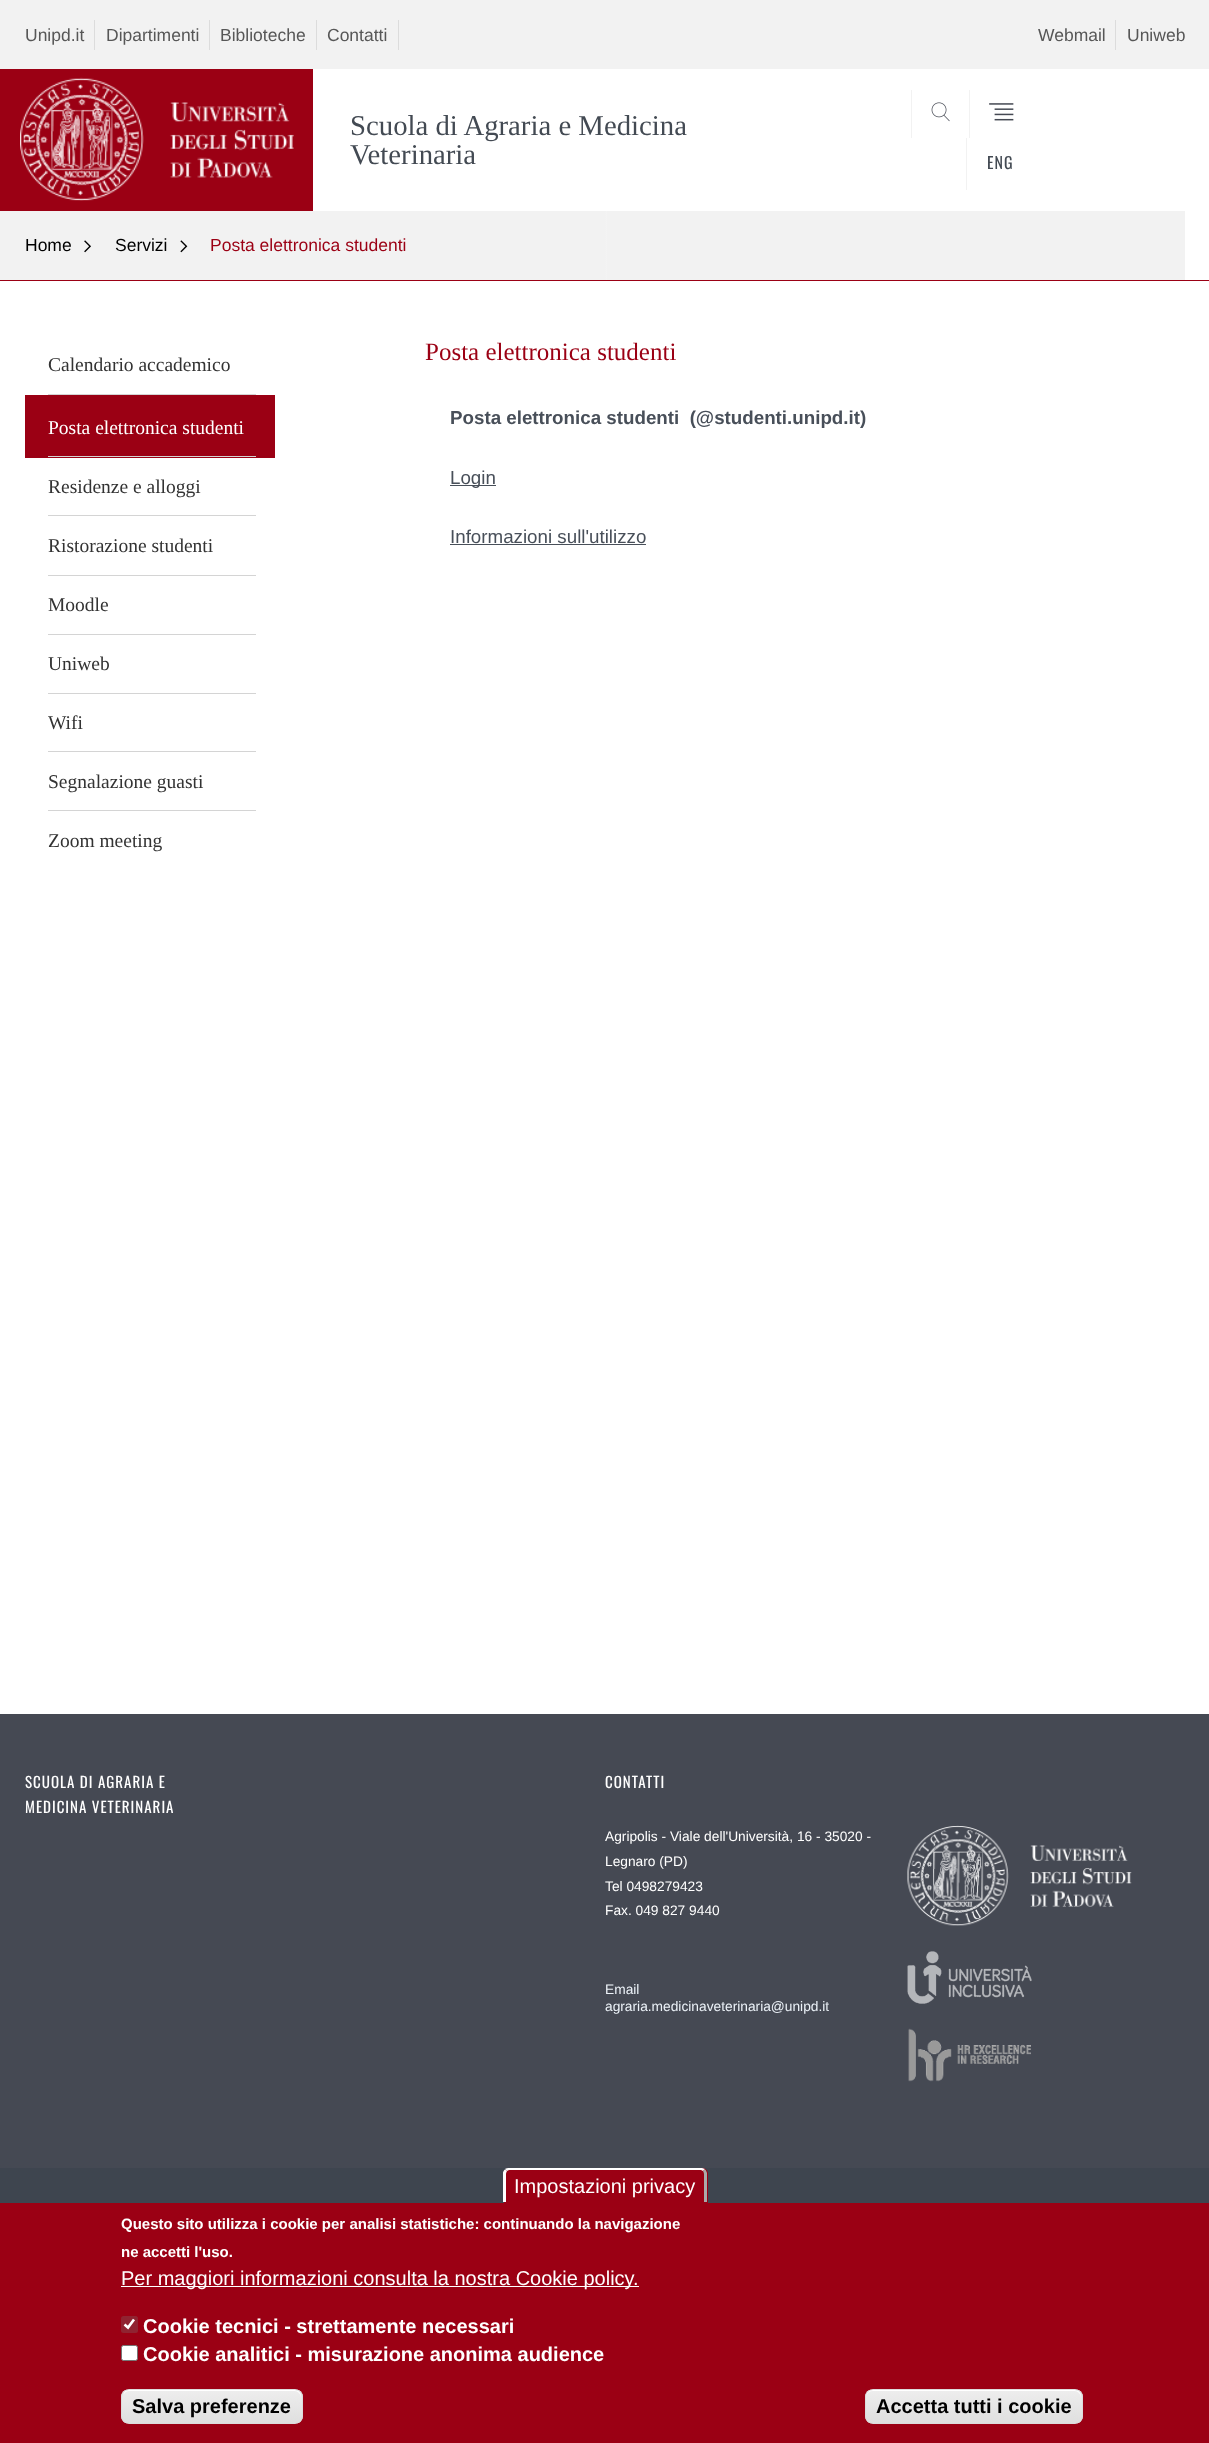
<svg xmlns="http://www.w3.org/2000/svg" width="1209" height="2443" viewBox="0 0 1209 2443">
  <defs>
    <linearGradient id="g1" gradientUnits="userSpaceOnUse" x1="0" y1="246" x2="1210" y2="246"><stop offset="0" stop-color="#f2f2f2"/><stop offset="0.5" stop-color="#f2f2f2"/><stop offset="0.51" stop-color="#ffffff"/><stop offset="1" stop-color="#ffffff"/></linearGradient>
    <clipPath id="clip1"><rect x="121" y="2389" width="182" height="35" rx="8"/></clipPath>
    <linearGradient id="g2" gradientUnits="userSpaceOnUse" x1="212" y1="2390" x2="212" y2="2423"><stop offset="0.05" stop-color="#ededed"/><stop offset="1" stop-color="#dfdfdf"/></linearGradient>
    <clipPath id="clip2"><rect x="865" y="2389" width="218" height="35" rx="8"/></clipPath>
    <linearGradient id="g3" gradientUnits="userSpaceOnUse" x1="974" y1="2390" x2="974" y2="2423"><stop offset="0.05" stop-color="#ededed"/><stop offset="1" stop-color="#dfdfdf"/></linearGradient>
  </defs>
  <rect width="100%" height="100%" fill="#ffffff"/>
  <rect x="0" y="0" width="1209" height="69" fill="#f2f2f2"/>
  <rect x="94" y="20" width="1" height="30" fill="#dcdcdc"/>
  <text x="25" y="41" font-family="Liberation Sans" font-size="17.5" fill="#575757">Unipd.it</text>
  <rect x="209" y="20" width="1" height="30" fill="#dcdcdc"/>
  <text x="106" y="41" font-family="Liberation Sans" font-size="17.5" fill="#575757">Dipartimenti</text>
  <rect x="316" y="20" width="1" height="30" fill="#dcdcdc"/>
  <text x="220" y="41" font-family="Liberation Sans" font-size="17.5" fill="#575757">Biblioteche</text>
  <rect x="398" y="20" width="1" height="30" fill="#dcdcdc"/>
  <text x="327" y="41" font-family="Liberation Sans" font-size="17.5" fill="#575757">Contatti</text>
  <rect x="1115" y="20" width="1" height="30" fill="#dcdcdc"/>
  <text x="1038" y="41" font-family="Liberation Sans" font-size="17.5" fill="#575757">Webmail</text>
  <text x="1127" y="41" font-family="Liberation Sans" font-size="17.5" fill="#575757">Uniweb</text>
  <rect x="0" y="69" width="313" height="142" fill="#9b0014"/>
  <image x="20" y="77" width="274" height="124" href="img1.png"/>
  <text x="350" y="135" font-family="Liberation Serif" font-size="28.75" fill="#434a53">Scuola di Agraria e Medicina</text>
  <text x="350" y="164" font-family="Liberation Serif" font-size="28.75" fill="#434a53">Veterinaria</text>
  <rect x="911" y="90" width="1" height="48" fill="#f2f2f2"/>
  <image x="931" y="102" width="19" height="20" href="img2.png"/>
  <rect x="969" y="90" width="1" height="48" fill="#f2f2f2"/>
  <image x="989" y="103" width="25" height="18" href="img3.png"/>
  <rect x="966" y="138" width="1" height="52" fill="#f2f2f2"/>
  <text x="987" y="169" font-family="Oswald" font-size="16" letter-spacing="1" fill="#434a53">ENG</text>
  <rect x="0" y="211" width="615" height="69" fill="url(#g1)"/>
  <rect x="607" y="211" width="578" height="69" fill="#f2f2f2"/>
  <text x="25" y="251" font-family="Liberation Sans" font-size="17.5" fill="#000000">Home</text>
  <image x="84" y="240" width="7" height="13" href="img4.png"/>
  <text x="115" y="251" font-family="Liberation Sans" font-size="17.5" fill="#000000">Servizi</text>
  <image x="180" y="240" width="8" height="13" href="img5.png"/>
  <text x="210" y="251" font-family="Liberation Sans" font-size="17.5" fill="#9b0014">Posta elettronica studenti</text>
  <rect x="0" y="280" width="1209" height="1" fill="#9b0014"/>
  <rect x="48" y="394" width="208" height="1" fill="#d4d4d4"/>
  <text x="48" y="371" font-family="Liberation Serif" font-size="19.5" fill="#333333">Calendario accademico</text>
  <rect x="25" y="395" width="250" height="63" fill="#9b0014"/>
  <rect x="48" y="456" width="208" height="1" fill="#d4d4d4"/>
  <text x="48" y="434" font-family="Liberation Serif" font-size="19.5" fill="#ffffff">Posta elettronica studenti</text>
  <rect x="48" y="515" width="208" height="1" fill="#d4d4d4"/>
  <text x="48" y="493" font-family="Liberation Serif" font-size="19.5" fill="#333333">Residenze e alloggi</text>
  <rect x="48" y="575" width="208" height="1" fill="#d4d4d4"/>
  <text x="48" y="552" font-family="Liberation Serif" font-size="19.5" fill="#333333">Ristorazione studenti</text>
  <rect x="48" y="634" width="208" height="1" fill="#d4d4d4"/>
  <text x="48" y="611" font-family="Liberation Serif" font-size="19.5" fill="#333333">Moodle</text>
  <rect x="48" y="693" width="208" height="1" fill="#d4d4d4"/>
  <text x="48" y="670" font-family="Liberation Serif" font-size="19.5" fill="#333333">Uniweb</text>
  <rect x="48" y="751" width="208" height="1" fill="#d4d4d4"/>
  <text x="48" y="729" font-family="Liberation Serif" font-size="19.5" fill="#333333">Wifi</text>
  <rect x="48" y="810" width="208" height="1" fill="#d4d4d4"/>
  <text x="48" y="788" font-family="Liberation Serif" font-size="19.5" fill="#333333">Segnalazione guasti</text>
  <text x="48" y="847" font-family="Liberation Serif" font-size="19.5" fill="#333333">Zoom meeting</text>
  <text x="425" y="360" font-family="Liberation Serif" font-size="25" fill="#9b0014">Posta elettronica studenti</text>
  <text x="450" y="424" font-family="Liberation Sans" font-size="18.75" font-weight="bold" fill="#484f59" xml:space="preserve">Posta elettronica studenti  (@studenti.unipd.it)</text>
  <rect x="450" y="485" width="46" height="1" fill="#484f59"/>
  <text x="450" y="484" font-family="Liberation Sans" font-size="18.75" fill="#484f59">Login</text>
  <text x="450" y="543" font-family="Liberation Sans" font-size="18.75" fill="#484f59">Informazioni sull'utilizzo</text>
  <rect x="450" y="544" width="196" height="1" fill="#484f59"/>
  <rect x="0" y="1714" width="1209" height="454" fill="#454953"/>
  <text x="25" y="1788" font-family="Oswald" font-size="15" letter-spacing="1" fill="#ffffff">SCUOLA DI AGRARIA E</text>
  <text x="25" y="1813" font-family="Oswald" font-size="15" letter-spacing="1" fill="#ffffff">MEDICINA VETERINARIA</text>
  <text x="605" y="1788" font-family="Oswald" font-size="15" letter-spacing="1" fill="#ffffff">CONTATTI</text>
  <text x="605" y="1841" font-family="Liberation Sans" font-size="13.75" fill="#ffffff">Agripolis - Viale dell'Università, 16 - 35020 -</text>
  <text x="605" y="1866" font-family="Liberation Sans" font-size="13.75" fill="#ffffff">Legnaro (PD)</text>
  <text x="605" y="1891" font-family="Liberation Sans" font-size="13.75" fill="#ffffff">Tel 0498279423</text>
  <text x="605" y="1915" font-family="Liberation Sans" font-size="13.75" fill="#ffffff">Fax. 049 827 9440</text>
  <text x="605" y="1994" font-family="Liberation Sans" font-size="13.75" fill="#ecf2f8">Email</text>
  <text x="605" y="2011" font-family="Liberation Sans" font-size="13.75" fill="#ecf2f8">agraria.medicinaveterinaria@unipd.it</text>
  <image x="907" y="1825" width="225" height="101" href="img6.png"/>
  <image x="907" y="1951" width="125" height="53" href="img7.png"/>
  <image x="908" y="2028" width="123" height="54" href="img8.png"/>
  <rect x="0" y="2168" width="1209" height="35" fill="#3e454f"/>
  <rect x="0" y="2203" width="1209" height="240" fill="#9b0014"/>
  <path d="M510 2168H702C705.5 2168 708 2170.5 708 2174V2203H504V2174C504 2170.5 506.5 2168 510 2168Z" fill="#9b0014"/>
  <path d="M509 2168H702L705 2169L703 2171L701 2170H509L507 2171L505 2169C506 2168 508 2168 509 2168Z" fill="#ffffff"/>
  <path d="M705 2169.5C706 2170 706.5 2171.5 707 2173V2202H704V2174C704 2173 703.5 2172 703 2171Z" fill="#aaaaaa"/>
  <path d="M505 2169.5L507 2171C506.5 2172 506 2173 506 2174V2202H503V2172.5C503.5 2171 504 2170 505 2169.5Z" fill="#ffffff"/>
  <text x="514" y="2193" font-family="Liberation Sans" font-size="20" fill="#ffffff">Impostazioni privacy</text>
  <text x="121" y="2229" font-family="Liberation Sans" font-size="15" font-weight="bold" fill="#ffffff">Questo sito utilizza i cookie per analisi statistiche: continuando la navigazione</text>
  <text x="121" y="2257" font-family="Liberation Sans" font-size="15" font-weight="bold" fill="#ffffff">ne accetti l'uso.</text>
  <rect x="121" y="2286" width="518" height="1" fill="#ffffff"/>
  <text x="121" y="2285" font-family="Liberation Sans" font-size="20" fill="#ffffff">Per maggiori informazioni consulta la nostra Cookie policy.</text>
  <rect x="121" y="2316" width="17" height="17" rx="2.5" fill="#902331"/>
  <path d="M124.5 2324.5L128 2327.5L134 2319.5" fill="none" stroke="#ffffff" stroke-width="2.6"/>
  <text x="143" y="2333" font-family="Liberation Sans" font-size="20" font-weight="bold" fill="#ffffff">Cookie tecnici - strettamente necessari</text>
  <rect x="121.5" y="2345.5" width="16" height="15" rx="2" fill="#ffffff" stroke="#767676"/>
  <text x="143" y="2361" font-family="Liberation Sans" font-size="20" font-weight="bold" fill="#ffffff">Cookie analitici - misurazione anonima audience</text>
  <g clip-path="url(#clip1)">
    <rect x="121" y="2390" width="182" height="33" fill="url(#g2)"/>
  </g>
  <path d="M129 2391H295C298 2391 301 2394 301 2398V2396C301 2393 298 2390 295 2390H129C127 2390 124 2391 124 2394C125 2392 127 2391 129 2391Z" fill="#ffffff"/>
  <rect x="121.5" y="2389.5" width="181" height="34" rx="7.5" fill="none" stroke="#dcdcdc"/>
  <text x="132" y="2413" font-family="Liberation Sans" font-size="20" font-weight="bold" fill="#000000">Salva preferenze</text>
  <g clip-path="url(#clip2)">
    <rect x="865" y="2390" width="218" height="33" fill="url(#g3)"/>
  </g>
  <path d="M872 2391H1075C1078 2391 1081 2394 1081 2398V2396C1081 2393 1078 2390 1075 2390H872C869 2390 866 2393 866 2396V2398C866 2394 869 2391 872 2391Z" fill="#ffffff"/>
  <rect x="865.5" y="2389.5" width="217" height="34" rx="7.5" fill="none" stroke="#dcdcdc"/>
  <text x="876" y="2413" font-family="Liberation Sans" font-size="20" font-weight="bold" fill="#000000">Accetta tutti i cookie</text>
</svg>
